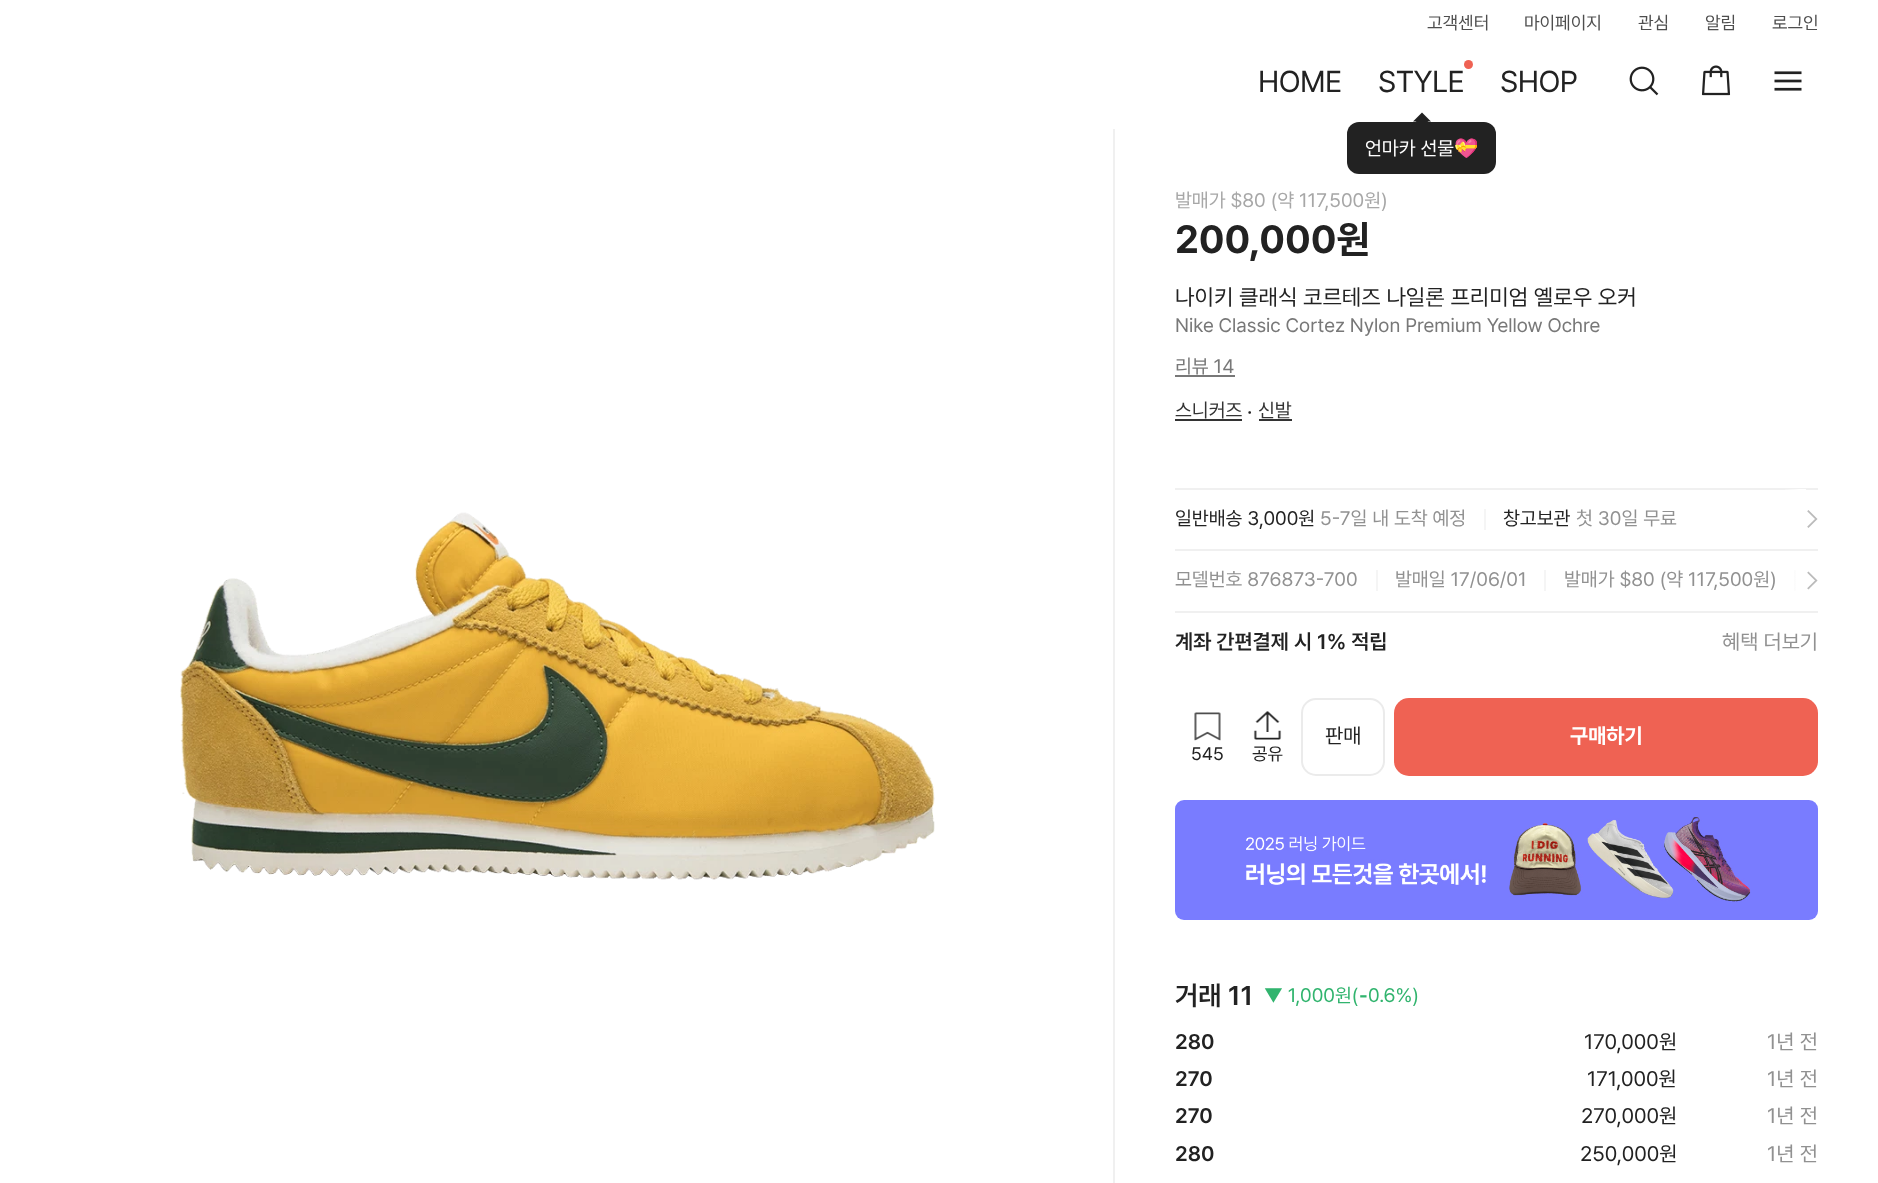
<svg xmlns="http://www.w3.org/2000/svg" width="1878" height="1183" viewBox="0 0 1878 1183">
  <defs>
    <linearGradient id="g1" gradientUnits="userSpaceOnUse" x1="1782" y1="519" x2="1806" y2="519"><stop offset="0" stop-color="#ffffff" stop-opacity="0"/><stop offset="0.75" stop-color="#ffffff"/><stop offset="1" stop-color="#ffffff"/></linearGradient>
    <linearGradient id="g2" gradientUnits="userSpaceOnUse" x1="1782" y1="581" x2="1806" y2="581"><stop offset="0" stop-color="#ffffff" stop-opacity="0"/><stop offset="0.75" stop-color="#ffffff"/><stop offset="1" stop-color="#ffffff"/></linearGradient>
  </defs>
  <rect width="100%" height="100%" fill="#ffffff"/>
  <text x="1427" y="29" font-family="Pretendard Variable" font-size="18" fill="#4e4e4e">고객센터</text>
  <text x="1524" y="29" font-family="Pretendard Variable" font-size="18" fill="#4e4e4e">마이페이지</text>
  <text x="1638" y="29" font-family="Pretendard Variable" font-size="18" fill="#4e4e4e">관심</text>
  <text x="1705" y="29" font-family="Pretendard Variable" font-size="18" fill="#4e4e4e">알림</text>
  <text x="1772" y="29" font-family="Pretendard Variable" font-size="18" fill="#4e4e4e">로그인</text>
  <text x="1258" y="92" font-family="Pretendard Variable" font-size="30" letter-spacing="-0.5" fill="#222222">HOME</text>
  <circle cx="1468.5" cy="64.5" r="4.5" fill="#ef6253"/>
  <text x="1378" y="92" font-family="Pretendard Variable" font-size="30" letter-spacing="-0.5" fill="#222222">STYLE</text>
  <text x="1500" y="92" font-family="Pretendard Variable" font-size="30" letter-spacing="-0.5" fill="#222222">SHOP</text>
  <path d="M1431 121.5H1413L1422 112.5Z" fill="#222222"/>
  <rect x="1347" y="122" width="149" height="52" rx="12" fill="#222222"/>
  <path d="M1432.5 126H1411.5L1422 115.5Z" fill="#222222"/>
  <text x="1365" y="155" font-family="Pretendard Variable" font-size="19.5" fill="#ffffff">언마카 선물</text>
  <text x="1454" y="155" font-family="Noto Color Emoji" font-size="19.5" fill="#ffffff">💝</text>
  <image x="1629" y="66" width="30" height="30" href="img1.png"/>
  <image x="1701" y="65" width="30" height="31" href="img2.png"/>
  <image x="1774" y="71" width="28" height="20" href="img3.png"/>
  <image x="180" y="512" width="755" height="368" href="img4.png"/>
  <rect x="1113" y="129" width="2" height="1054" fill="#f0f0f0"/>
  <text x="1175" y="207" font-family="Pretendard Variable" font-size="19.5" fill="#a7a7a7">발매가 $80 (약 117,500원)</text>
  <text x="1175" y="253" font-family="Pretendard Variable" font-size="39" font-weight="bold" fill="#222222">200,000원</text>
  <text x="1175" y="305" font-family="Pretendard Variable" font-size="22.5" fill="#222222">나이키 클래식 코르테즈 나일론 프리미엄 옐로우 오커</text>
  <text x="1175" y="332" font-family="Pretendard Variable" font-size="19.5" fill="#787878">Nike Classic Cortez Nylon Premium Yellow Ochre</text>
  <text x="1175" y="373" font-family="Pretendard Variable" font-size="19.5" fill="#787878">리뷰 14</text>
  <rect x="1175" y="375" width="60" height="2" fill="#787878"/>
  <text x="1175" y="417" font-family="Pretendard Variable" font-size="19.5" fill="#333333">스니커즈</text>
  <rect x="1175" y="419" width="67" height="2" fill="#333333"/>
  <text x="1247" y="419" font-family="Pretendard Variable" font-size="21" fill="#222222">·</text>
  <text x="1258" y="417" font-family="Pretendard Variable" font-size="19.5" fill="#333333">신발</text>
  <rect x="1259" y="419" width="33" height="2" fill="#333333"/>
  <rect x="1175" y="488" width="643" height="2" fill="#f0f0f0"/>
  <rect x="1785" y="489" width="21" height="1" fill="url(#g1)"/>
  <text x="1175" y="525" font-family="Pretendard Variable" font-size="19.5" fill="#222222">일반배송 3,000원</text>
  <text x="1320" y="525" font-family="Pretendard Variable" font-size="19.5" fill="#919191">5-7일 내 도착 예정</text>
  <rect x="1484" y="509" width="2" height="21" fill="#f5f5f5"/>
  <text x="1503" y="525" font-family="Pretendard Variable" font-size="19.5" fill="#222222">창고보관</text>
  <text x="1576" y="525" font-family="Pretendard Variable" font-size="19.5" fill="#919191">첫 30일 무료</text>
  <image x="1807" y="510" width="11" height="18" href="img5.png"/>
  <rect x="1175" y="549" width="643" height="2" fill="#f0f0f0"/>
  <text x="1175" y="586" font-family="Pretendard Variable" font-size="19.5" fill="#919191">모델번호 876873-700</text>
  <rect x="1376" y="570" width="2" height="21" fill="#f5f5f5"/>
  <text x="1395" y="586" font-family="Pretendard Variable" font-size="19.5" fill="#919191">발매일 17/06/01</text>
  <rect x="1544" y="570" width="2" height="21" fill="#f5f5f5"/>
  <text x="1564" y="586" font-family="Pretendard Variable" font-size="19.5" fill="#919191">발매가 $80 (약 117,500원)</text>
  <rect x="1794" y="570" width="2" height="21" fill="#f5f5f5"/>
  <rect x="1794" y="570" width="2" height="21" fill="url(#g2)"/>
  <image x="1807" y="571" width="11" height="19" href="img6.png"/>
  <rect x="1175" y="611" width="643" height="2" fill="#f0f0f0"/>
  <text x="1175" y="649" font-family="Pretendard Variable" font-size="21" font-weight="600" fill="#222222">계좌 간편결제 시 1% 적립</text>
  <text x="1722" y="649" font-family="Pretendard Variable" font-size="21" fill="#919191">혜택 더보기</text>
  <rect x="1302" y="699" width="82" height="76" rx="14" fill="none" stroke="#ebebeb" stroke-width="2"/>
  <text x="1325" y="743" font-family="Pretendard Variable" font-size="21" fill="#222222">판매</text>
  <rect x="1394" y="698" width="424" height="78" rx="15" fill="#ef6253"/>
  <text x="1570" y="743" font-family="Pretendard Variable" font-size="21" font-weight="bold" fill="#ffffff">구매하기</text>
  <image x="1194" y="712" width="27" height="29" href="img7.png"/>
  <text x="1191" y="760" font-family="Pretendard Variable" font-size="18" fill="#222222">545</text>
  <image x="1253" y="711" width="29" height="29" href="img8.png"/>
  <text x="1252" y="760" font-family="Pretendard Variable" font-size="18" fill="#222222">공유</text>
  <rect x="1175" y="800" width="643" height="120" rx="9" fill="#797cff"/>
  <image x="1246" y="817" width="505" height="85" href="img9.png"/>
  <text x="1175" y="1005" font-family="Pretendard Variable" font-size="27" font-weight="600" fill="#222222">거래 11</text>
  <text x="1264" y="1002" font-family="Pretendard Variable" font-size="19.5" fill="#31b46e">▼ 1,000원(</text>
  <text x="1359" y="1002" font-family="Pretendard Variable" font-size="19.5" font-weight="bold" fill="#31b46e">-</text>
  <text x="1368" y="1002" font-family="Pretendard Variable" font-size="19.5" fill="#31b46e">0.6%)</text>
  <text x="1175" y="1049" font-family="Pretendard Variable" font-size="21" font-weight="600" fill="#222222">280</text>
  <text x="1584" y="1049" font-family="Pretendard Variable" font-size="21" fill="#222222">170,000원</text>
  <text x="1767" y="1049" font-family="Pretendard Variable" font-size="21" fill="#919191">1년 전</text>
  <text x="1175" y="1086" font-family="Pretendard Variable" font-size="21" font-weight="600" fill="#222222">270</text>
  <text x="1587" y="1086" font-family="Pretendard Variable" font-size="21" fill="#222222">171,000원</text>
  <text x="1767" y="1086" font-family="Pretendard Variable" font-size="21" fill="#919191">1년 전</text>
  <text x="1175" y="1123" font-family="Pretendard Variable" font-size="21" font-weight="600" fill="#222222">270</text>
  <text x="1581" y="1123" font-family="Pretendard Variable" font-size="21" fill="#222222">270,000원</text>
  <text x="1767" y="1123" font-family="Pretendard Variable" font-size="21" fill="#919191">1년 전</text>
  <text x="1175" y="1161" font-family="Pretendard Variable" font-size="21" font-weight="600" fill="#222222">280</text>
  <text x="1580" y="1161" font-family="Pretendard Variable" font-size="21" fill="#222222">250,000원</text>
  <text x="1767" y="1161" font-family="Pretendard Variable" font-size="21" fill="#919191">1년 전</text>
</svg>
